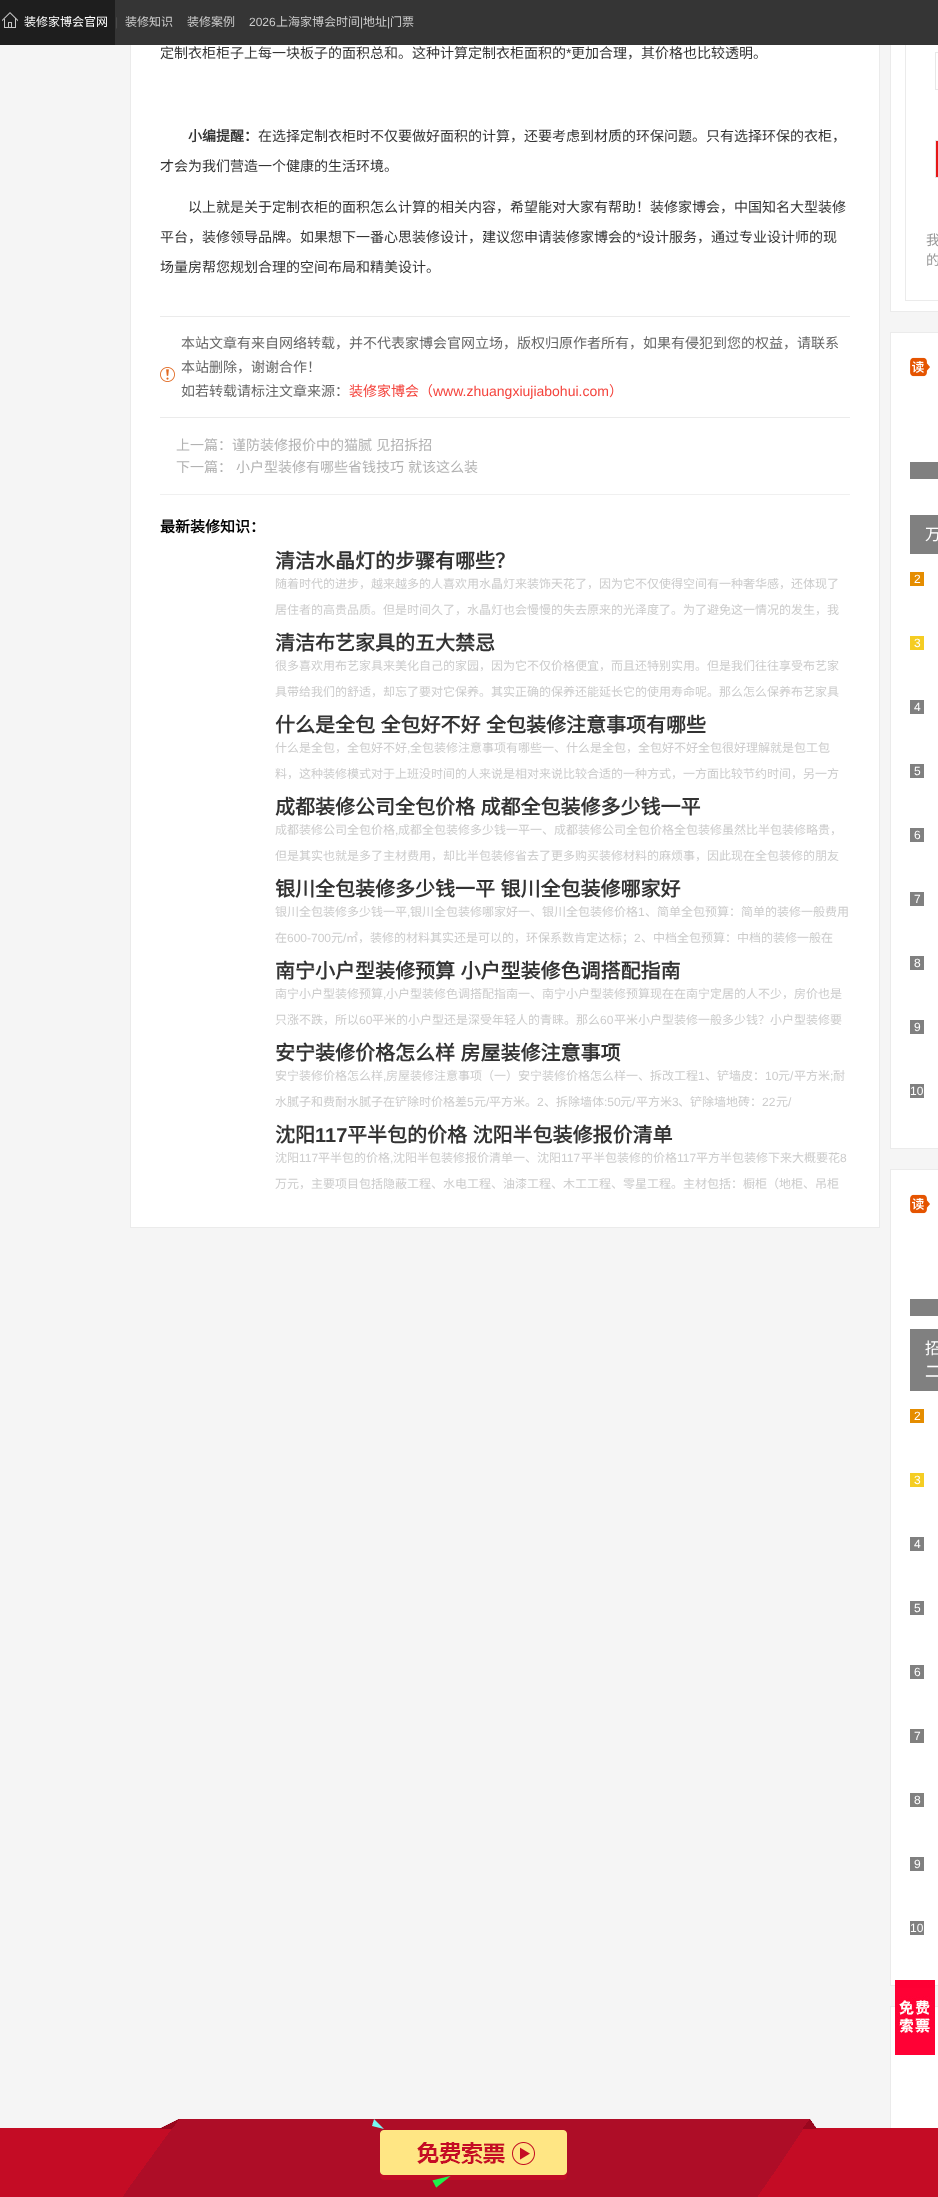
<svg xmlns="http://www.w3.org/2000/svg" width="938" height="2197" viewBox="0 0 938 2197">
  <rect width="100%" height="100%" fill="#f5f5f5"/>
  <rect x="131" y="45" width="748" height="1182" fill="#ffffff"/>
  <rect x="130.5" y="-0.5" width="749" height="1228" fill="none" stroke="#ebebeb"/>
  <rect x="891" y="45" width="47" height="266" fill="#ffffff"/>
  <rect x="890.5" y="-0.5" width="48" height="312" fill="none" stroke="#ebebeb"/>
  <rect x="905.5" y="-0.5" width="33" height="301" fill="none" stroke="#ebebeb"/>
  <rect x="115" y="0" width="823" height="45" fill="#353535"/>
  <rect x="0" y="0" width="115" height="45" fill="#1e1e1e"/>
  <image x="2" y="12" width="16" height="16" href="img1.png"/>
  <text x="24" y="26" font-family="Noto Sans CJK SC" font-size="12" fill="#ffffff">装修家博会官网</text>
  <text x="115" y="26" font-family="Liberation Sans" font-size="12" fill="#4b4b4b">|</text>
  <text x="125" y="26" font-family="Noto Sans CJK SC" font-size="12" fill="#cccccc">装修知识</text>
  <text x="187" y="26" font-family="Noto Sans CJK SC" font-size="12" fill="#cccccc">装修案例</text>
  <text x="249" y="26" font-family="Liberation Sans" font-size="12" fill="#cccccc">2026</text>
  <text x="276" y="26" font-family="Noto Sans CJK SC" font-size="12" fill="#cccccc">上海家博会时间</text>
  <text x="360" y="26" font-family="Liberation Sans" font-size="12" fill="#cccccc">|</text>
  <text x="363" y="26" font-family="Noto Sans CJK SC" font-size="12" fill="#cccccc">地址</text>
  <text x="387" y="26" font-family="Liberation Sans" font-size="12" fill="#cccccc">|</text>
  <text x="390" y="26" font-family="Noto Sans CJK SC" font-size="12" fill="#cccccc">门票</text>
  <rect x="160" y="316" width="690" height="1" fill="#ebebeb"/>
  <text x="160" y="58" font-family="Noto Sans CJK SC" font-size="14" fill="#333333">定制衣柜柜子上每一块板子的面积总和。这种计算定制衣柜面积的</text>
  <text x="566" y="58" font-family="Liberation Sans" font-size="14" fill="#333333">*</text>
  <text x="571" y="58" font-family="Noto Sans CJK SC" font-size="14" fill="#333333">更加合理，其价格也比较透明。</text>
  <text x="188" y="141" font-family="Noto Sans CJK SC" font-size="14" font-weight="bold" fill="#333333">小编提醒：</text>
  <text x="258" y="141" font-family="Noto Sans CJK SC" font-size="14" fill="#333333">在选择定制衣柜时不仅要做好面积的计算，还要考虑到材质的环保问题。只有选择环保的衣柜，</text>
  <text x="160" y="171" font-family="Noto Sans CJK SC" font-size="14" fill="#333333">才会为我们营造一个健康的生活环境。</text>
  <text x="188" y="212" font-family="Noto Sans CJK SC" font-size="14" fill="#333333">以上就是关于定制衣柜的面积怎么计算的相关内容，希望能对大家有帮助！装修家博会，中国知名大型装修</text>
  <text x="160" y="242" font-family="Noto Sans CJK SC" font-size="14" fill="#333333">平台，装修领导品牌。如果想下一番心思装修设计，建议您申请装修家博会的</text>
  <text x="636" y="242" font-family="Liberation Sans" font-size="14" fill="#333333">*</text>
  <text x="641" y="242" font-family="Noto Sans CJK SC" font-size="14" fill="#333333">设计服务，通过专业设计师的现</text>
  <text x="160" y="272" font-family="Noto Sans CJK SC" font-size="14" fill="#333333">场量房帮您规划合理的空间布局和精美设计。</text>
  <image x="160" y="367" width="15" height="15" href="img2.png"/>
  <rect x="160" y="417" width="690" height="1" fill="#ebebeb"/>
  <text x="181" y="348" font-family="Noto Sans CJK SC" font-size="14" fill="#666666">本站文章有来自网络转载，并不代表家博会官网立场，版权归原作者所有，如果有侵犯到您的权益，请联系</text>
  <text x="181" y="372" font-family="Noto Sans CJK SC" font-size="14" fill="#666666">本站删除，谢谢合作！</text>
  <text x="181" y="396" font-family="Noto Sans CJK SC" font-size="14" fill="#666666">如若转载请标注文章来源：</text>
  <text x="349" y="396" font-family="Noto Sans CJK SC" font-size="14" fill="#f4433c">装修家博会（</text>
  <text x="433" y="396" font-family="Liberation Sans" font-size="14" fill="#f4433c">www.zhuangxiujiabohui.com</text>
  <text x="609" y="396" font-family="Noto Sans CJK SC" font-size="14" fill="#f4433c">）</text>
  <text x="176" y="450" font-family="Noto Sans CJK SC" font-size="14" fill="#b2b2b2">上一篇：</text>
  <text x="232" y="450" word-spacing="1" font-family="Noto Sans CJK SC" font-size="14" fill="#b2b2b2">谨防装修报价中的猫腻 见招拆招</text>
  <text x="176" y="472" font-family="Noto Sans CJK SC" font-size="14" fill="#b2b2b2">下一篇：</text>
  <text x="236" y="472" font-family="Noto Sans CJK SC" font-size="14" fill="#b2b2b2">小户型装修有哪些省钱技巧</text>
  <text x="408" y="472" font-family="Noto Sans CJK SC" font-size="14" fill="#b2b2b2">就该这么装</text>
  <rect x="160" y="494" width="690" height="1" fill="#f0f0f0"/>
  <text x="160" y="532" font-family="Noto Sans CJK SC" font-size="15" font-weight="bold" fill="#000000">最新装修知识：</text>
  <text x="275" y="568" font-family="Noto Sans CJK SC" font-size="20" font-weight="bold" fill="#333333">清洁水晶灯的步骤有哪些？</text>
  <text x="275" y="588" font-family="Noto Sans CJK SC" font-size="12" fill="#cccccc">随着时代的进步，越来越多的人喜欢用水晶灯来装饰天花了，因为它不仅使得空间有一种奢华感，还体现了</text>
  <text x="275" y="614" font-family="Noto Sans CJK SC" font-size="12" fill="#cccccc">居住者的高贵品质。但是时间久了，水晶灯也会慢慢的失去原来的光泽度了。为了避免这一情况的发生，我</text>
  <text x="275" y="650" font-family="Noto Sans CJK SC" font-size="20" font-weight="bold" fill="#333333">清洁布艺家具的五大禁忌</text>
  <text x="275" y="670" font-family="Noto Sans CJK SC" font-size="12" fill="#cccccc">很多喜欢用布艺家具来美化自己的家园，因为它不仅价格便宜，而且还特别实用。但是我们往往享受布艺家</text>
  <text x="275" y="696" font-family="Noto Sans CJK SC" font-size="12" fill="#cccccc">具带给我们的舒适，却忘了要对它保养。其实正确的保养还能延长它的使用寿命呢。那么怎么保养布艺家具</text>
  <text x="275" y="732" word-spacing="1" font-family="Noto Sans CJK SC" font-size="20" font-weight="bold" fill="#333333">什么是全包 全包好不好 全包装修注意事项有哪些</text>
  <text x="275" y="752" font-family="Noto Sans CJK SC" font-size="12" fill="#cccccc">什么是全包，全包好不好</text>
  <text x="407" y="752" font-family="Liberation Sans" font-size="12" fill="#cccccc">,</text>
  <text x="410" y="752" font-family="Noto Sans CJK SC" font-size="12" fill="#cccccc">全包装修注意事项有哪些一、什么是全包，全包好不好全包很好理解就是包工包</text>
  <text x="275" y="778" font-family="Noto Sans CJK SC" font-size="12" fill="#cccccc">料，这种装修模式对于上班没时间的人来说是相对来说比较合适的一种方式，一方面比较节约时间，另一方</text>
  <text x="275" y="814" word-spacing="1" font-family="Noto Sans CJK SC" font-size="20" font-weight="bold" fill="#333333">成都装修公司全包价格 成都全包装修多少钱一平</text>
  <text x="275" y="834" font-family="Noto Sans CJK SC" font-size="12" fill="#cccccc">成都装修公司全包价格</text>
  <text x="395" y="834" font-family="Liberation Sans" font-size="12" fill="#cccccc">,</text>
  <text x="398" y="834" font-family="Noto Sans CJK SC" font-size="12" fill="#cccccc">成都全包装修多少钱一平一、成都装修公司全包价格全包装修虽然比半包装修略贵，</text>
  <text x="275" y="860" font-family="Noto Sans CJK SC" font-size="12" fill="#cccccc">但是其实也就是多了主材费用，却比半包装修省去了更多购买装修材料的麻烦事，因此现在全包装修的朋友</text>
  <text x="275" y="896" word-spacing="1" font-family="Noto Sans CJK SC" font-size="20" font-weight="bold" fill="#333333">银川全包装修多少钱一平 银川全包装修哪家好</text>
  <text x="275" y="916" font-family="Noto Sans CJK SC" font-size="12" fill="#cccccc">银川全包装修多少钱一平</text>
  <text x="407" y="916" font-family="Liberation Sans" font-size="12" fill="#cccccc">,</text>
  <text x="410" y="916" font-family="Noto Sans CJK SC" font-size="12" fill="#cccccc">银川全包装修哪家好一、银川全包装修价格</text>
  <text x="638" y="916" font-family="Liberation Sans" font-size="12" fill="#cccccc">1</text>
  <text x="645" y="916" font-family="Noto Sans CJK SC" font-size="12" fill="#cccccc">、简单全包预算：简单的装修一般费用</text>
  <text x="275" y="942" font-family="Noto Sans CJK SC" font-size="12" fill="#cccccc">在</text>
  <text x="287" y="942" font-family="Liberation Sans" font-size="12" fill="#cccccc">600-700</text>
  <text x="331" y="942" font-family="Noto Sans CJK SC" font-size="12" fill="#cccccc">元</text>
  <text x="343" y="942" font-family="Liberation Sans" font-size="12" fill="#cccccc">/</text>
  <text x="346" y="942" font-family="Noto Sans CJK SC" font-size="12" fill="#cccccc">㎡，装修的材料其实还是可以的，环保系数肯定达标；</text>
  <text x="634" y="942" font-family="Liberation Sans" font-size="12" fill="#cccccc">2</text>
  <text x="641" y="942" font-family="Noto Sans CJK SC" font-size="12" fill="#cccccc">、中档全包预算：中档的装修一般在</text>
  <text x="275" y="978" word-spacing="1" font-family="Noto Sans CJK SC" font-size="20" font-weight="bold" fill="#333333">南宁小户型装修预算 小户型装修色调搭配指南</text>
  <text x="275" y="998" font-family="Noto Sans CJK SC" font-size="12" fill="#cccccc">南宁小户型装修预算</text>
  <text x="383" y="998" font-family="Liberation Sans" font-size="12" fill="#cccccc">,</text>
  <text x="386" y="998" font-family="Noto Sans CJK SC" font-size="12" fill="#cccccc">小户型装修色调搭配指南一、南宁小户型装修预算现在在南宁定居的人不少，房价也是</text>
  <text x="275" y="1024" font-family="Noto Sans CJK SC" font-size="12" fill="#cccccc">只涨不跌，所以</text>
  <text x="359" y="1024" font-family="Liberation Sans" font-size="12" fill="#cccccc">60</text>
  <text x="372" y="1024" font-family="Noto Sans CJK SC" font-size="12" fill="#cccccc">平米的小户型还是深受年轻人的青睐。那么</text>
  <text x="600" y="1024" font-family="Liberation Sans" font-size="12" fill="#cccccc">60</text>
  <text x="614" y="1024" font-family="Noto Sans CJK SC" font-size="12" fill="#cccccc">平米小户型装修一般多少钱？小户型装修要</text>
  <text x="275" y="1060" word-spacing="1" font-family="Noto Sans CJK SC" font-size="20" font-weight="bold" fill="#333333">安宁装修价格怎么样 房屋装修注意事项</text>
  <text x="275" y="1080" font-family="Noto Sans CJK SC" font-size="12" fill="#cccccc">安宁装修价格怎么样</text>
  <text x="383" y="1080" font-family="Liberation Sans" font-size="12" fill="#cccccc">,</text>
  <text x="386" y="1080" font-family="Noto Sans CJK SC" font-size="12" fill="#cccccc">房屋装修注意事项（一）安宁装修价格怎么样一、拆改工程</text>
  <text x="698" y="1080" font-family="Liberation Sans" font-size="12" fill="#cccccc">1</text>
  <text x="705" y="1080" font-family="Noto Sans CJK SC" font-size="12" fill="#cccccc">、铲墙皮：</text>
  <text x="765" y="1080" font-family="Liberation Sans" font-size="12" fill="#cccccc">10</text>
  <text x="778" y="1080" font-family="Noto Sans CJK SC" font-size="12" fill="#cccccc">元</text>
  <text x="790" y="1080" font-family="Liberation Sans" font-size="12" fill="#cccccc">/</text>
  <text x="794" y="1080" font-family="Noto Sans CJK SC" font-size="12" fill="#cccccc">平方米</text>
  <text x="830" y="1080" font-family="Liberation Sans" font-size="12" fill="#cccccc">;</text>
  <text x="833" y="1080" font-family="Noto Sans CJK SC" font-size="12" fill="#cccccc">耐</text>
  <text x="275" y="1106" font-family="Noto Sans CJK SC" font-size="12" fill="#cccccc">水腻子和费耐水腻子在铲除时价格差</text>
  <text x="467" y="1106" font-family="Liberation Sans" font-size="12" fill="#cccccc">5</text>
  <text x="474" y="1106" font-family="Noto Sans CJK SC" font-size="12" fill="#cccccc">元</text>
  <text x="486" y="1106" font-family="Liberation Sans" font-size="12" fill="#cccccc">/</text>
  <text x="489" y="1106" font-family="Noto Sans CJK SC" font-size="12" fill="#cccccc">平方米。</text>
  <text x="537" y="1106" font-family="Liberation Sans" font-size="12" fill="#cccccc">2</text>
  <text x="544" y="1106" font-family="Noto Sans CJK SC" font-size="12" fill="#cccccc">、拆除墙体</text>
  <text x="604" y="1106" font-family="Liberation Sans" font-size="12" fill="#cccccc">:50</text>
  <text x="620" y="1106" font-family="Noto Sans CJK SC" font-size="12" fill="#cccccc">元</text>
  <text x="632" y="1106" font-family="Liberation Sans" font-size="12" fill="#cccccc">/</text>
  <text x="636" y="1106" font-family="Noto Sans CJK SC" font-size="12" fill="#cccccc">平方米</text>
  <text x="672" y="1106" font-family="Liberation Sans" font-size="12" fill="#cccccc">3</text>
  <text x="678" y="1106" font-family="Noto Sans CJK SC" font-size="12" fill="#cccccc">、铲除墙地砖：</text>
  <text x="762" y="1106" font-family="Liberation Sans" font-size="12" fill="#cccccc">22</text>
  <text x="776" y="1106" font-family="Noto Sans CJK SC" font-size="12" fill="#cccccc">元</text>
  <text x="788" y="1106" font-family="Liberation Sans" font-size="12" fill="#cccccc">/</text>
  <text x="275" y="1142" font-family="Noto Sans CJK SC" font-size="20" font-weight="bold" fill="#333333">沈阳</text>
  <text x="315" y="1142" font-family="Liberation Sans" font-size="20" font-weight="bold" fill="#333333">117</text>
  <text x="347" y="1142" word-spacing="1" font-family="Noto Sans CJK SC" font-size="20" font-weight="bold" fill="#333333">平半包的价格 沈阳半包装修报价清单</text>
  <text x="275" y="1162" font-family="Noto Sans CJK SC" font-size="12" fill="#cccccc">沈阳</text>
  <text x="299" y="1162" font-family="Liberation Sans" font-size="12" fill="#cccccc">117</text>
  <text x="318" y="1162" font-family="Noto Sans CJK SC" font-size="12" fill="#cccccc">平半包的价格</text>
  <text x="390" y="1162" font-family="Liberation Sans" font-size="12" fill="#cccccc">,</text>
  <text x="393" y="1162" font-family="Noto Sans CJK SC" font-size="12" fill="#cccccc">沈阳半包装修报价清单一、沈阳</text>
  <text x="561" y="1162" font-family="Liberation Sans" font-size="12" fill="#cccccc">117</text>
  <text x="581" y="1162" font-family="Noto Sans CJK SC" font-size="12" fill="#cccccc">平半包装修的价格</text>
  <text x="677" y="1162" font-family="Liberation Sans" font-size="12" fill="#cccccc">117</text>
  <text x="696" y="1162" font-family="Noto Sans CJK SC" font-size="12" fill="#cccccc">平方半包装修下来大概要花</text>
  <text x="840" y="1162" font-family="Liberation Sans" font-size="12" fill="#cccccc">8</text>
  <text x="275" y="1188" font-family="Noto Sans CJK SC" font-size="12" fill="#cccccc">万元，主要项目包括隐蔽工程、水电工程、油漆工程、木工工程、零星工程。主材包括：橱柜（地柜、吊柜</text>
  <rect x="935.5" y="52.5" width="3" height="37" fill="none" stroke="#e7e7e7"/>
  <rect x="935.5" y="140.5" width="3" height="37" fill="#e61717" stroke="#e7e7e7"/>
  <text x="926" y="245" font-family="Noto Sans CJK SC" font-size="14" fill="#999999">我</text>
  <text x="926" y="265" font-family="Noto Sans CJK SC" font-size="14" fill="#999999">的</text>
  <rect x="890.5" y="332.5" width="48" height="816" fill="#ffffff" stroke="#ebebeb"/>
  <image x="910" y="357" width="20" height="20" href="img3.png"/>
  <rect x="910" y="462" width="28" height="17" fill="#808080"/>
  <rect x="910" y="515" width="28" height="39" fill="#808080"/>
  <text x="925" y="540" font-family="Noto Sans CJK SC" font-size="16" fill="#ffffff">万</text>
  <rect x="910" y="572" width="14" height="14" fill="#e58d00"/>
  <text x="914" y="583" font-family="Liberation Sans" font-size="12" fill="#ffffff">2</text>
  <rect x="910" y="636" width="14" height="14" fill="#f5cd23"/>
  <text x="914" y="647" font-family="Liberation Sans" font-size="12" fill="#ffffff">3</text>
  <rect x="910" y="700" width="14" height="14" fill="#808080"/>
  <text x="914" y="711" font-family="Liberation Sans" font-size="12" fill="#ffffff">4</text>
  <rect x="910" y="764" width="14" height="14" fill="#808080"/>
  <text x="914" y="775" font-family="Liberation Sans" font-size="12" fill="#ffffff">5</text>
  <rect x="910" y="828" width="14" height="14" fill="#808080"/>
  <text x="914" y="839" font-family="Liberation Sans" font-size="12" fill="#ffffff">6</text>
  <rect x="910" y="892" width="14" height="14" fill="#808080"/>
  <text x="914" y="903" font-family="Liberation Sans" font-size="12" fill="#ffffff">7</text>
  <rect x="910" y="956" width="14" height="14" fill="#808080"/>
  <text x="914" y="967" font-family="Liberation Sans" font-size="12" fill="#ffffff">8</text>
  <rect x="910" y="1020" width="14" height="14" fill="#808080"/>
  <text x="914" y="1031" font-family="Liberation Sans" font-size="12" fill="#ffffff">9</text>
  <rect x="910" y="1084" width="14" height="14" fill="#808080"/>
  <text x="910" y="1095" font-family="Liberation Sans" font-size="12" fill="#ffffff">10</text>
  <rect x="890.5" y="1169.5" width="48" height="816" fill="#ffffff" stroke="#ebebeb"/>
  <image x="910" y="1194" width="20" height="20" href="img3.png"/>
  <rect x="910" y="1299" width="28" height="17" fill="#808080"/>
  <rect x="910" y="1329" width="28" height="62" fill="#808080"/>
  <text x="925" y="1354" font-family="Noto Sans CJK SC" font-size="16" fill="#ffffff">招</text>
  <text x="925" y="1377" font-family="Noto Sans CJK SC" font-size="16" fill="#ffffff">二</text>
  <rect x="910" y="1409" width="14" height="14" fill="#e58d00"/>
  <text x="914" y="1420" font-family="Liberation Sans" font-size="12" fill="#ffffff">2</text>
  <rect x="910" y="1473" width="14" height="14" fill="#f5cd23"/>
  <text x="914" y="1484" font-family="Liberation Sans" font-size="12" fill="#ffffff">3</text>
  <rect x="910" y="1537" width="14" height="14" fill="#808080"/>
  <text x="914" y="1548" font-family="Liberation Sans" font-size="12" fill="#ffffff">4</text>
  <rect x="910" y="1601" width="14" height="14" fill="#808080"/>
  <text x="914" y="1612" font-family="Liberation Sans" font-size="12" fill="#ffffff">5</text>
  <rect x="910" y="1665" width="14" height="14" fill="#808080"/>
  <text x="914" y="1676" font-family="Liberation Sans" font-size="12" fill="#ffffff">6</text>
  <rect x="910" y="1729" width="14" height="14" fill="#808080"/>
  <text x="914" y="1740" font-family="Liberation Sans" font-size="12" fill="#ffffff">7</text>
  <rect x="910" y="1793" width="14" height="14" fill="#808080"/>
  <text x="914" y="1804" font-family="Liberation Sans" font-size="12" fill="#ffffff">8</text>
  <rect x="910" y="1857" width="14" height="14" fill="#808080"/>
  <text x="914" y="1868" font-family="Liberation Sans" font-size="12" fill="#ffffff">9</text>
  <rect x="910" y="1921" width="14" height="14" fill="#808080"/>
  <text x="910" y="1932" font-family="Liberation Sans" font-size="12" fill="#ffffff">10</text>
  <rect x="891" y="2007" width="47" height="121" fill="#ffffff"/>
  <rect x="890.5" y="2006.5" width="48" height="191" fill="none" stroke="#ebebeb"/>
  <image x="895" y="1980" width="40" height="75" href="img4.png"/>
  <image x="0" y="2119" width="938" height="78" href="img5.png"/>
  <image x="372" y="2119" width="195" height="69" href="img6.png"/>
</svg>
